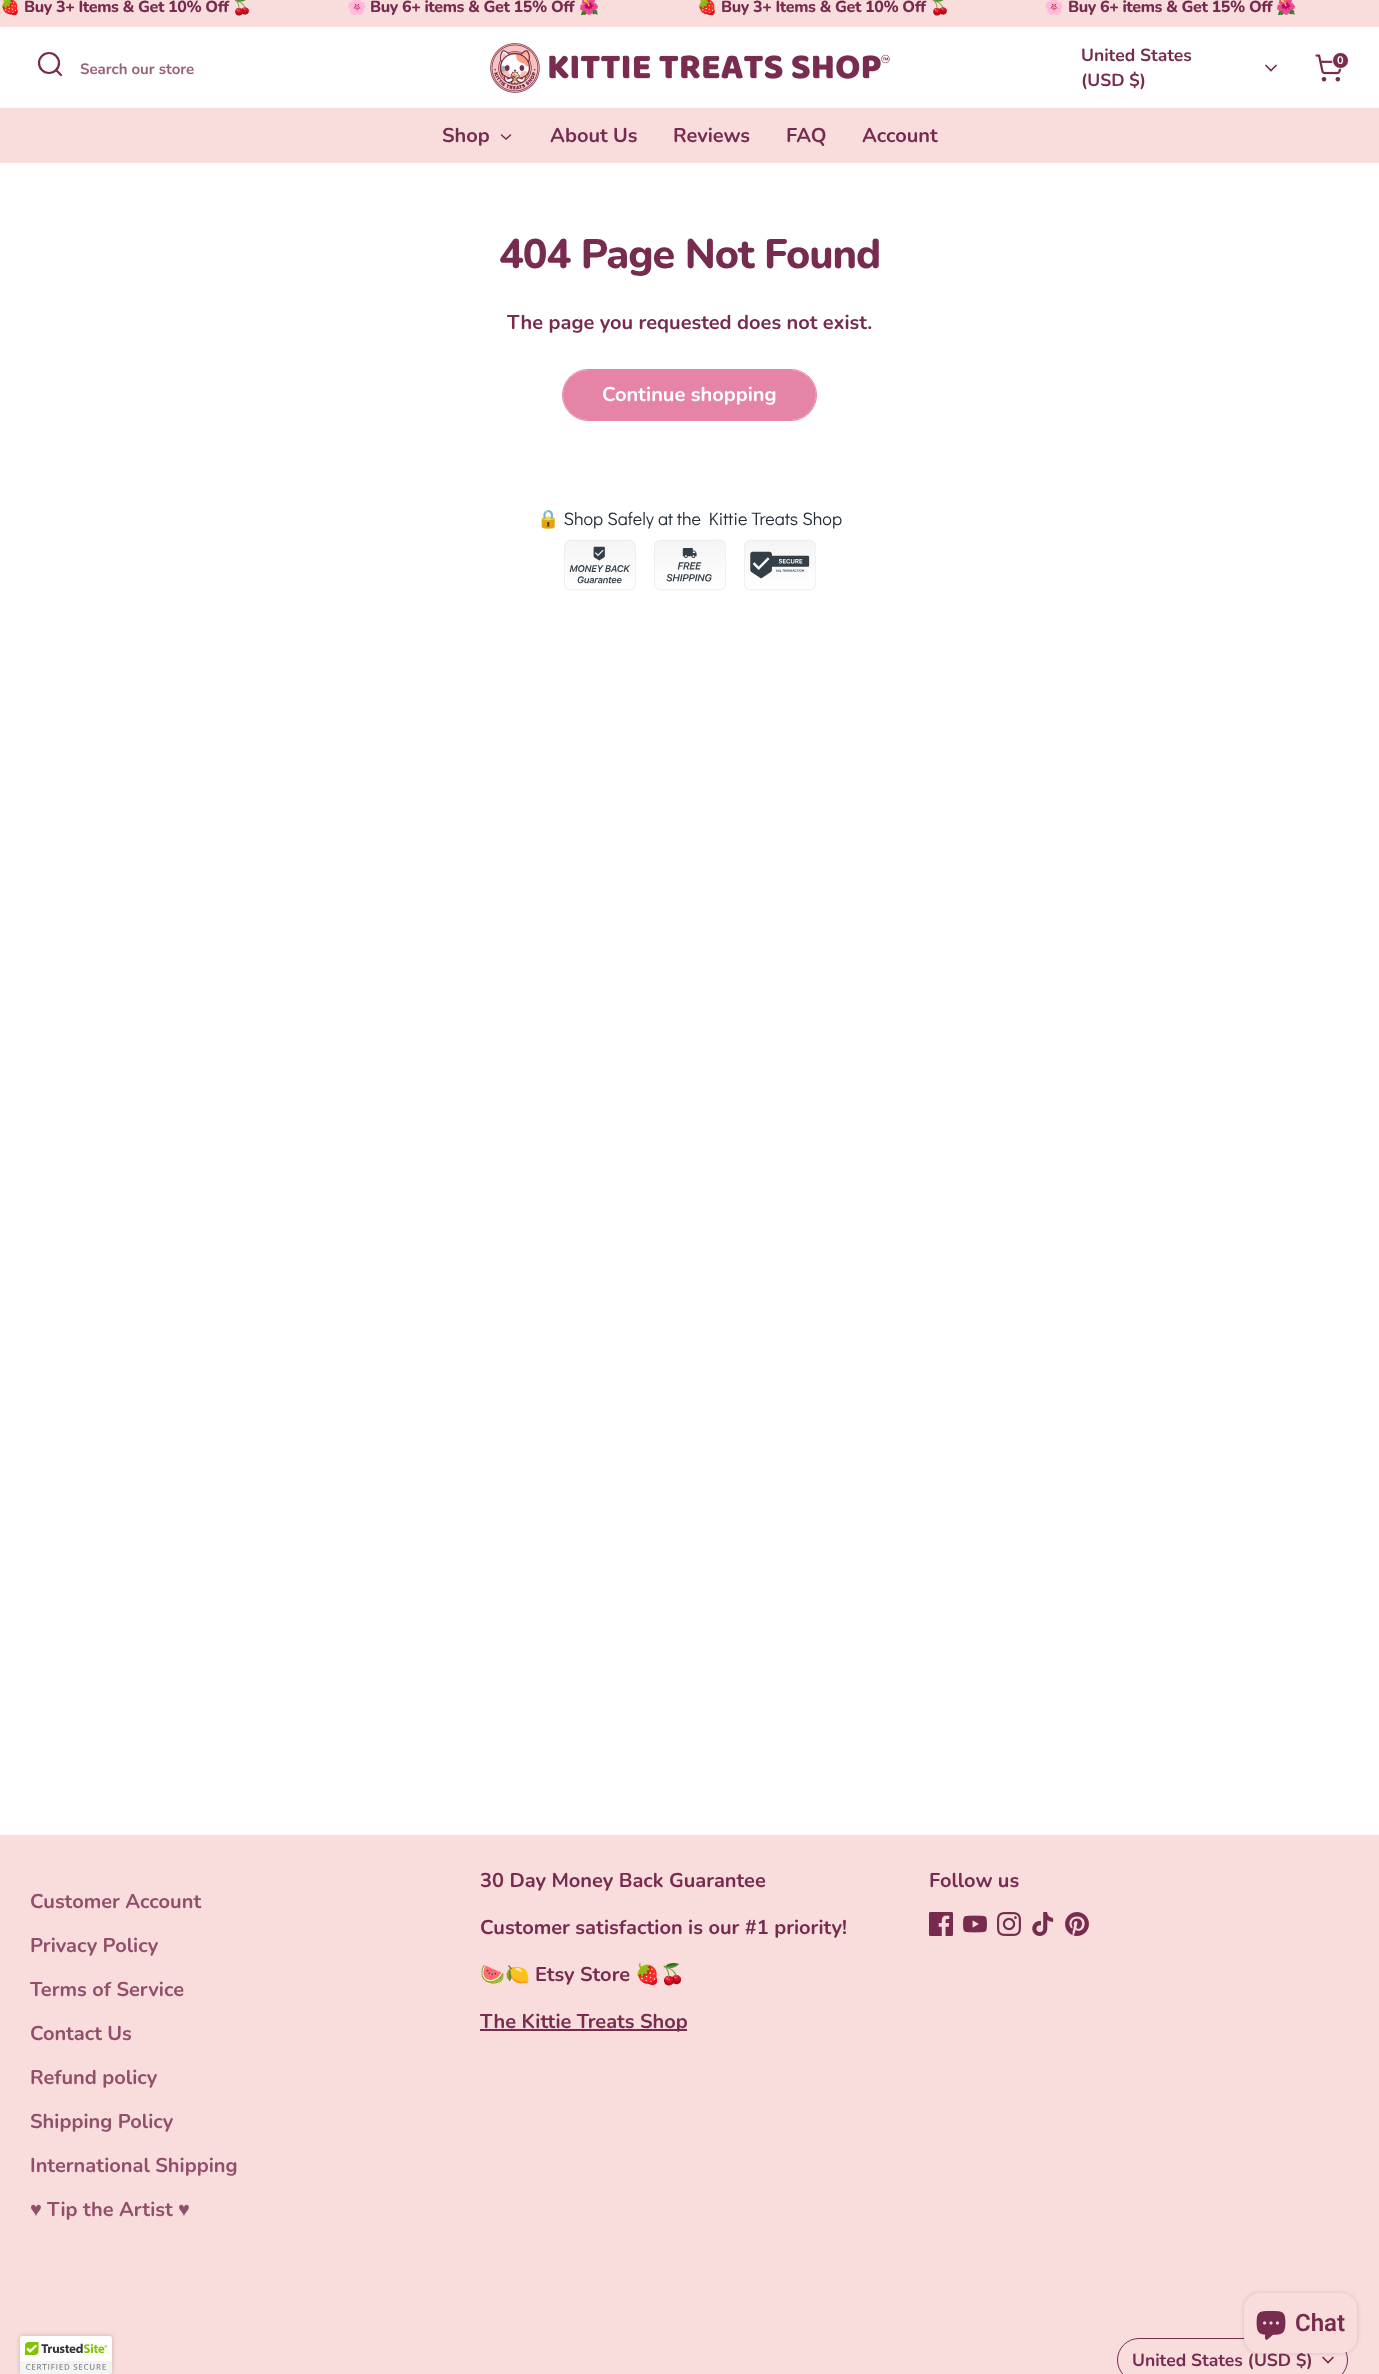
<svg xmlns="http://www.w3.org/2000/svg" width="1379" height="2374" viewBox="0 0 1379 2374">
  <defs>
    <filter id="blur1" x="-50%" y="-200%" width="200%" height="500%"><feGaussianBlur stdDeviation="2.5"/></filter>
  </defs>
  <rect width="100%" height="100%" fill="#ffffff"/>
  <rect x="0" y="0" width="1379" height="27" fill="#f9dddd"/>
  <text x="0" y="12" font-family="Noto Color Emoji" font-size="16" font-weight="bold" letter-spacing="-0.4" fill="#772c4f">🍓</text>
  <text x="24" y="12" font-family="Nunito" font-size="16" font-weight="800" letter-spacing="-0.4" fill="#772c4f">Buy 3+ Items &amp; Get 10% Off</text>
  <text x="232" y="12" font-family="Noto Color Emoji" font-size="16" font-weight="bold" letter-spacing="-0.4" fill="#772c4f">🍒</text>
  <text x="347" y="12" font-family="Noto Color Emoji" font-size="16" font-weight="bold" letter-spacing="-0.4" fill="#772c4f">🌸</text>
  <text x="370" y="12" font-family="Nunito" font-size="16" font-weight="800" letter-spacing="-0.4" fill="#772c4f">Buy 6+ items &amp; Get 15% Off</text>
  <text x="579" y="12" font-family="Noto Color Emoji" font-size="16" font-weight="bold" letter-spacing="-0.4" fill="#772c4f">🌺</text>
  <text x="697" y="12" font-family="Noto Color Emoji" font-size="16" font-weight="bold" letter-spacing="-0.4" fill="#772c4f">🍓</text>
  <text x="721" y="12" font-family="Nunito" font-size="16" font-weight="800" letter-spacing="-0.4" fill="#772c4f">Buy 3+ Items &amp; Get 10% Off</text>
  <text x="930" y="12" font-family="Noto Color Emoji" font-size="16" font-weight="bold" letter-spacing="-0.4" fill="#772c4f">🍒</text>
  <text x="1044" y="12" font-family="Noto Color Emoji" font-size="16" font-weight="bold" letter-spacing="-0.4" fill="#772c4f">🌸</text>
  <text x="1068" y="12" font-family="Nunito" font-size="16" font-weight="800" letter-spacing="-0.4" fill="#772c4f">Buy 6+ items &amp; Get 15% Off</text>
  <text x="1276" y="12" font-family="Noto Color Emoji" font-size="16" font-weight="bold" letter-spacing="-0.4" fill="#772c4f">🌺</text>
  <circle cx="49" cy="63" r="10" fill="none" stroke="#772c4f" stroke-width="2.2"/>
  <path d="M61 75L56 70" fill="none" stroke="#772c4f" stroke-width="2.2" stroke-linecap="round" stroke-linejoin="round"/>
  <text x="80" y="74" font-family="Nunito" font-size="15" font-weight="bold" fill="#99617b">Search our store</text>
  <image x="490" y="43" width="400" height="50" href="img1.png"/>
  <text x="1081" y="61" font-family="Nunito" font-size="17.5" font-weight="bold" fill="#772c4f">United States</text>
  <path d="M1266 65.5L1271 70.5L1276 65.5" fill="none" stroke="#772c4f" stroke-width="1.7" stroke-linecap="round"/>
  <text x="1081" y="86" font-family="Nunito" font-size="17.5" font-weight="bold" fill="#772c4f">(USD $)</text>
  <image x="1315" y="54" width="27" height="28" href="img2.png"/>
  <circle cx="1340.5" cy="60.5" r="8" fill="#772c4f" stroke="#ffffff"/>
  <text x="1337" y="64" font-family="Nunito" font-size="11" font-weight="bold" fill="#ffffff">0</text>
  <rect x="0" y="108" width="1379" height="55" fill="#f9dddd"/>
  <text x="442" y="142" font-family="Nunito" font-size="20" font-weight="bold" fill="#772c4f">Shop</text>
  <path d="M501.5 135L506 139L510.5 135" fill="none" stroke="#772c4f" stroke-width="1.5" stroke-linecap="round"/>
  <text x="550" y="142" font-family="Nunito" font-size="20" font-weight="bold" fill="#772c4f">About Us</text>
  <text x="673" y="142" font-family="Nunito" font-size="20" font-weight="bold" fill="#772c4f">Reviews</text>
  <text x="786" y="142" font-family="Nunito" font-size="20" font-weight="bold" fill="#772c4f">FAQ</text>
  <text x="862" y="142" font-family="Nunito" font-size="20" font-weight="bold" fill="#772c4f">Account</text>
  <text x="499" y="268" font-family="Nunito" font-size="41.25" font-weight="800" letter-spacing="-1" fill="#772c4f">404 Page Not Found</text>
  <text x="507" y="329" font-family="Nunito" font-size="20" font-weight="bold" fill="#772c4f">The page you requested does not exist.</text>
  <rect x="562.5" y="369.5" width="254" height="51" rx="25.5" fill="none" stroke="#e684a7"/>
  <rect x="563" y="370" width="253" height="50" rx="25" fill="#e684a7"/>
  <text x="602" y="401" font-family="Nunito" font-size="20" font-weight="bold" fill="#ffffff">Continue shopping</text>
  <image x="541" y="510" width="301" height="81" href="img3.png"/>
  <rect x="0" y="1835" width="1379" height="539" fill="#f9dddd"/>
  <text x="480" y="1887" font-family="Nunito" font-size="20" font-weight="bold" fill="#772c4f">30 Day Money Back Guarantee</text>
  <text x="480" y="1934" font-family="Nunito" font-size="20" font-weight="bold" fill="#772c4f">Customer satisfaction is our #1 priority!</text>
  <text x="480" y="1981" font-family="Noto Color Emoji" font-size="20" font-weight="bold" fill="#772c4f">🍉🍋</text>
  <text x="535" y="1981" font-family="Nunito" font-size="20" font-weight="bold" fill="#772c4f">Etsy Store</text>
  <text x="635" y="1981" font-family="Noto Color Emoji" font-size="20" font-weight="bold" fill="#772c4f">🍓🍒</text>
  <rect x="480" y="2029" width="207" height="2" fill="#772c4f"/>
  <text x="480" y="2028" font-family="Nunito" font-size="20" font-weight="bold" fill="#772c4f">The Kittie Treats Shop</text>
  <text x="929" y="1887" font-family="Nunito" font-size="20" font-weight="bold" fill="#772c4f">Follow us</text>
  <image x="929" y="1912" width="24" height="24" href="img4.png"/>
  <image x="963" y="1915" width="24" height="18" href="img5.png"/>
  <image x="997" y="1912" width="24" height="24" href="img6.png"/>
  <image x="1032" y="1912" width="22" height="24" href="img7.png"/>
  <image x="1065" y="1912" width="24" height="24" href="img8.png"/>
  <text x="30" y="1908" font-family="Nunito" font-size="20" font-weight="bold" fill="#914f6b">Customer Account</text>
  <text x="30" y="1952" font-family="Nunito" font-size="20" font-weight="bold" fill="#914f6b">Privacy Policy</text>
  <text x="30" y="1996" font-family="Nunito" font-size="20" font-weight="bold" fill="#914f6b">Terms of Service</text>
  <text x="30" y="2040" font-family="Nunito" font-size="20" font-weight="bold" fill="#914f6b">Contact Us</text>
  <text x="30" y="2084" font-family="Nunito" font-size="20" font-weight="bold" fill="#914f6b">Refund policy</text>
  <text x="30" y="2128" font-family="Nunito" font-size="20" font-weight="bold" fill="#914f6b">Shipping Policy</text>
  <text x="30" y="2172" font-family="Nunito" font-size="20" font-weight="bold" fill="#914f6b">International Shipping</text>
  <text x="30" y="2216" font-family="Liberation Sans" font-size="20" fill="#914f6b">♥</text>
  <text x="47" y="2216" font-family="Nunito" font-size="20" font-weight="bold" fill="#914f6b">Tip the Artist</text>
  <text x="178" y="2216" font-family="Liberation Sans" font-size="20" fill="#914f6b">♥</text>
  <rect x="1117.5" y="2338.5" width="230" height="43" rx="21.5" fill="none" stroke="#772c4f"/>
  <text x="1132" y="2366" font-family="Nunito" font-size="17.5" font-weight="bold" fill="#772c4f">United States (USD $)</text>
  <path d="M1323 2357.5L1328 2362.5L1333 2357.5" fill="none" stroke="#772c4f" stroke-width="1.7" stroke-linecap="round"/>
  <rect x="1244" y="2293" width="113" height="60" rx="16" fill="#000000" fill-opacity="0.15" filter="url(#blur1)"/>
  <rect x="1244" y="2293" width="113" height="60" rx="16" fill="#f9dddd"/>
  <image x="1256" y="2311" width="30" height="29" href="img9.png"/>
  <text x="1295" y="2331" font-family="Roboto" font-size="24" font-weight="600" fill="#772c4f">Chat</text>
  <rect x="20" y="2336" width="92" height="38" rx="2" fill="#000000" fill-opacity="0.2" filter="url(#blur1)"/>
  <path d="M22 2336H110C111 2336 112 2337 112 2338V2374H20V2338C20 2337 21 2336 22 2336Z" fill="#ffffff"/>
  <image x="20" y="2342" width="92" height="32" href="img10.png"/>
</svg>
